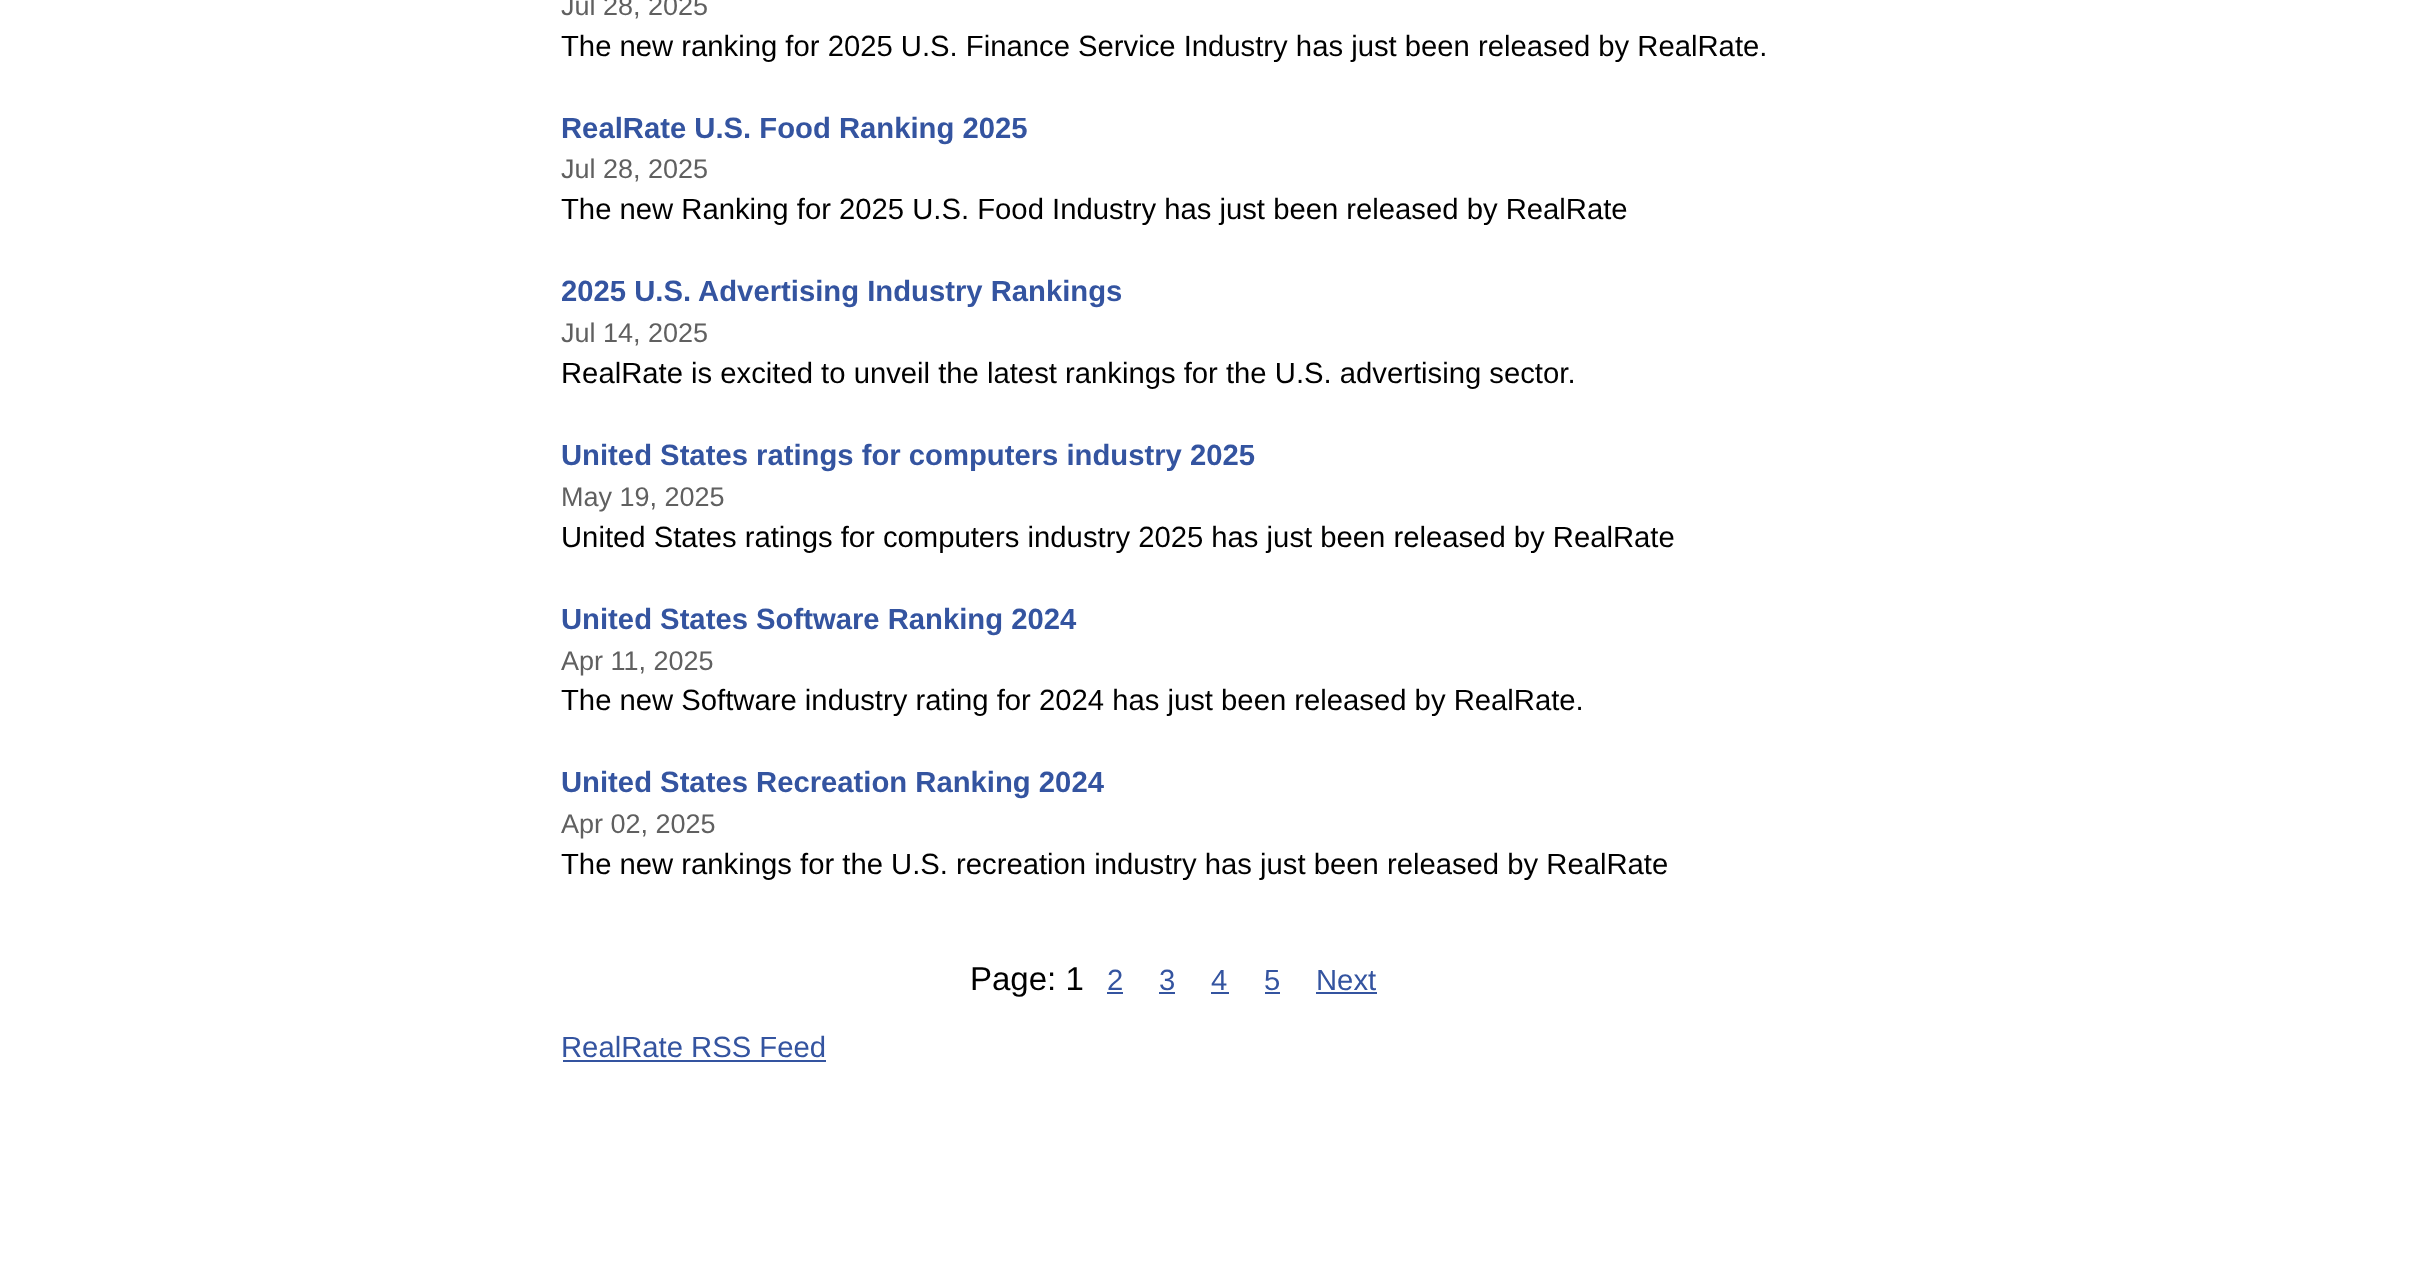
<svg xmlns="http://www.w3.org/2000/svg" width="2426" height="1288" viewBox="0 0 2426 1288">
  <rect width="100%" height="100%" fill="#ffffff"/>
  <text x="561" y="15" font-family="Liberation Sans" font-size="27" fill="#606060">Jul 28, 2025</text>
  <text x="561" y="56" font-family="Liberation Sans" font-size="29.25" fill="#000000">The new ranking for 2025 U.S. Finance Service Industry has just been released by RealRate.</text>
  <text x="561" y="138" font-family="Liberation Sans" font-size="29.25" font-weight="bold" fill="#3454a0">RealRate U.S. Food Ranking 2025</text>
  <text x="561" y="178" font-family="Liberation Sans" font-size="27" fill="#606060">Jul 28, 2025</text>
  <text x="561" y="219" font-family="Liberation Sans" font-size="29.25" fill="#000000">The new Ranking for 2025 U.S. Food Industry has just been released by RealRate</text>
  <text x="561" y="301" font-family="Liberation Sans" font-size="29.25" font-weight="bold" fill="#3454a0">2025 U.S. Advertising Industry Rankings</text>
  <text x="561" y="342" font-family="Liberation Sans" font-size="27" fill="#606060">Jul 14, 2025</text>
  <text x="561" y="383" font-family="Liberation Sans" font-size="29.25" fill="#000000">RealRate is excited to unveil the latest rankings for the U.S. advertising sector.</text>
  <text x="561" y="465" font-family="Liberation Sans" font-size="29.25" font-weight="bold" fill="#3454a0">United States ratings for computers industry 2025</text>
  <text x="561" y="506" font-family="Liberation Sans" font-size="27" fill="#606060">May 19, 2025</text>
  <text x="561" y="547" font-family="Liberation Sans" font-size="29.25" fill="#000000">United States ratings for computers industry 2025 has just been released by RealRate</text>
  <text x="561" y="629" font-family="Liberation Sans" font-size="29.25" font-weight="bold" fill="#3454a0">United States Software Ranking 2024</text>
  <text x="561" y="670" font-family="Liberation Sans" font-size="27" fill="#606060">Apr 11, 2025</text>
  <text x="561" y="710" font-family="Liberation Sans" font-size="29.25" fill="#000000">The new Software industry rating for 2024 has just been released by RealRate.</text>
  <text x="561" y="792" font-family="Liberation Sans" font-size="29.25" font-weight="bold" fill="#3454a0">United States Recreation Ranking 2024</text>
  <text x="561" y="833" font-family="Liberation Sans" font-size="27" fill="#606060">Apr 02, 2025</text>
  <text x="561" y="874" font-family="Liberation Sans" font-size="29.25" fill="#000000">The new rankings for the U.S. recreation industry has just been released by RealRate</text>
  <text x="970" y="990" font-family="Liberation Sans" font-size="33" fill="#000000">Page: 1</text>
  <text x="1107" y="990" font-family="Liberation Sans" font-size="29.25" fill="#3454a0">2</text>
  <rect x="1107" y="992" width="16" height="2" fill="#3454a0"/>
  <text x="1159" y="990" font-family="Liberation Sans" font-size="29.25" fill="#3454a0">3</text>
  <rect x="1159" y="992" width="16" height="2" fill="#3454a0"/>
  <text x="1211" y="990" font-family="Liberation Sans" font-size="29.25" fill="#3454a0">4</text>
  <rect x="1211" y="992" width="18" height="2" fill="#3454a0"/>
  <text x="1264" y="990" font-family="Liberation Sans" font-size="29.25" fill="#3454a0">5</text>
  <rect x="1265" y="992" width="15" height="2" fill="#3454a0"/>
  <text x="1316" y="990" font-family="Liberation Sans" font-size="29.25" fill="#3454a0">Next</text>
  <rect x="1316" y="992" width="61" height="2" fill="#3454a0"/>
  <text x="561" y="1057" font-family="Liberation Sans" font-size="29.25" fill="#3454a0">RealRate RSS Feed</text>
  <rect x="563" y="1060" width="263" height="2" fill="#3454a0"/>
</svg>
